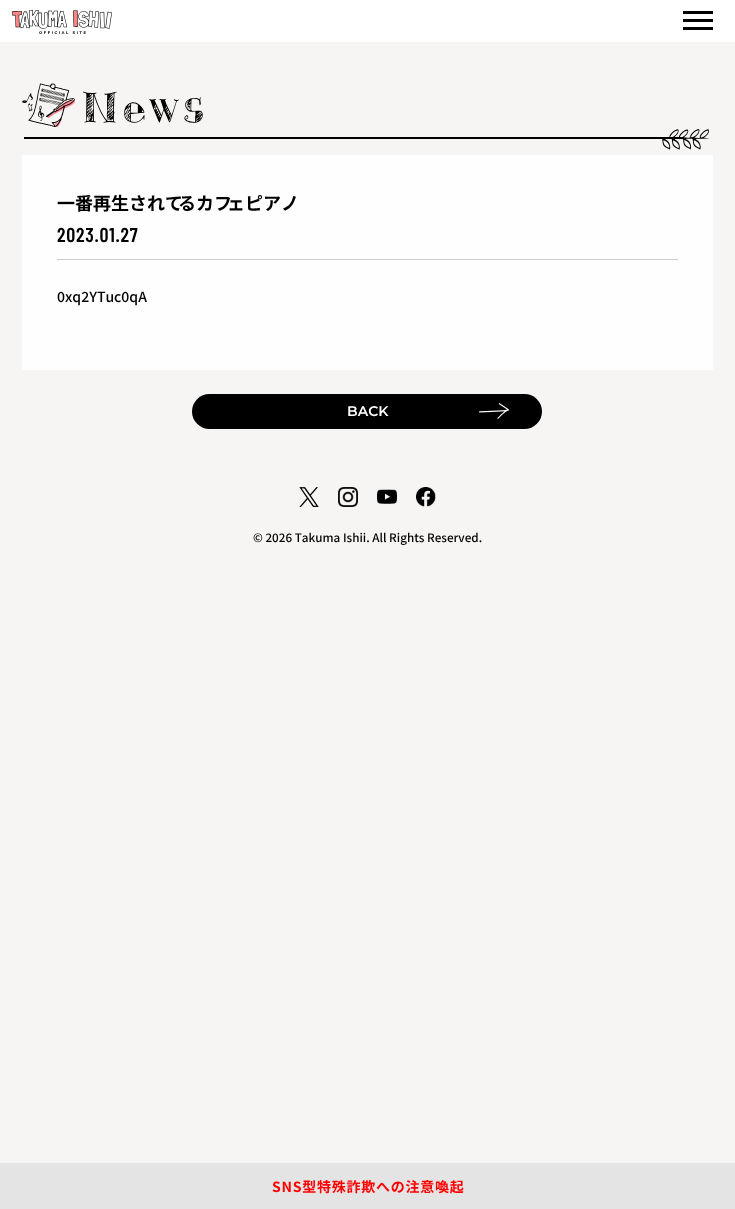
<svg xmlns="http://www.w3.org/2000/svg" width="735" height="1209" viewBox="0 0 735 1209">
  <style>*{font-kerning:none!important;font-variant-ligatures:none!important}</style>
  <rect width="100%" height="100%" fill="#f6f5f3"/>
  <rect x="0" y="0" width="735" height="42" fill="#ffffff"/>
  <image x="12" y="10" width="100" height="24" href="img1.png"/>
  <rect x="683" y="19" width="30" height="3" fill="#000000"/>
  <rect x="683" y="11" width="30" height="3" fill="#000000"/>
  <rect x="683" y="27" width="30" height="3" fill="#000000"/>
  <rect x="24" y="137" width="660" height="2" fill="#000000"/>
  <image x="22" y="83" width="181" height="45" href="img2.png"/>
  <image x="662" y="129" width="47" height="21" href="img3.png"/>
  <rect x="22" y="155" width="691" height="215" fill="#fefefe"/>
  <text x="57" y="210" font-family="Noto Sans JP" font-size="18" font-weight="bold" fill="#000000">一番再生されて</text>
  <text x="178" y="210" font-family="Noto Sans JP" font-size="18" font-weight="bold" fill="#000000">るカフ</text>
  <text x="227" y="210" font-family="Noto Sans JP" font-size="18" font-weight="bold" fill="#000000">ェピアノ</text>
  <rect x="57" y="259" width="621" height="1" fill="#cccccc"/>
  <text x="57" y="242" font-family="Barlow Condensed" font-size="20" font-weight="600" letter-spacing="0.75" fill="#000000">2023.01.27</text>
  <text x="57" y="302" font-family="Noto Sans JP" font-size="14" font-weight="500" fill="#000000">0xq2YTuc0qA</text>
  <rect x="192" y="394" width="350" height="35" rx="17.5" fill="#000000"/>
  <text x="347" y="416" font-family="Montserrat" font-size="14" font-weight="600" fill="#ffffff">BACK</text>
  <image x="479" y="403" width="30" height="16" href="img4.png"/>
  <image x="299" y="487" width="20" height="20" href="img5.png"/>
  <image x="338" y="487" width="20" height="20" href="img6.png"/>
  <image x="377" y="489" width="20" height="15" href="img7.png"/>
  <image x="416" y="487" width="20" height="20" href="img8.png"/>
  <text x="253" y="542" font-family="Noto Sans JP" font-size="11.7" font-weight="500" fill="#000000">© 2026 Takuma Ishii. All Rights Reserved.</text>
  <rect x="0" y="1163" width="735" height="46" fill="#e4e4e4"/>
  <text x="272" y="1192" font-family="Noto Sans JP" font-size="14" font-weight="bold" letter-spacing="0.75" fill="#ff0000">SNS型特殊詐欺への注意喚起</text>
</svg>
